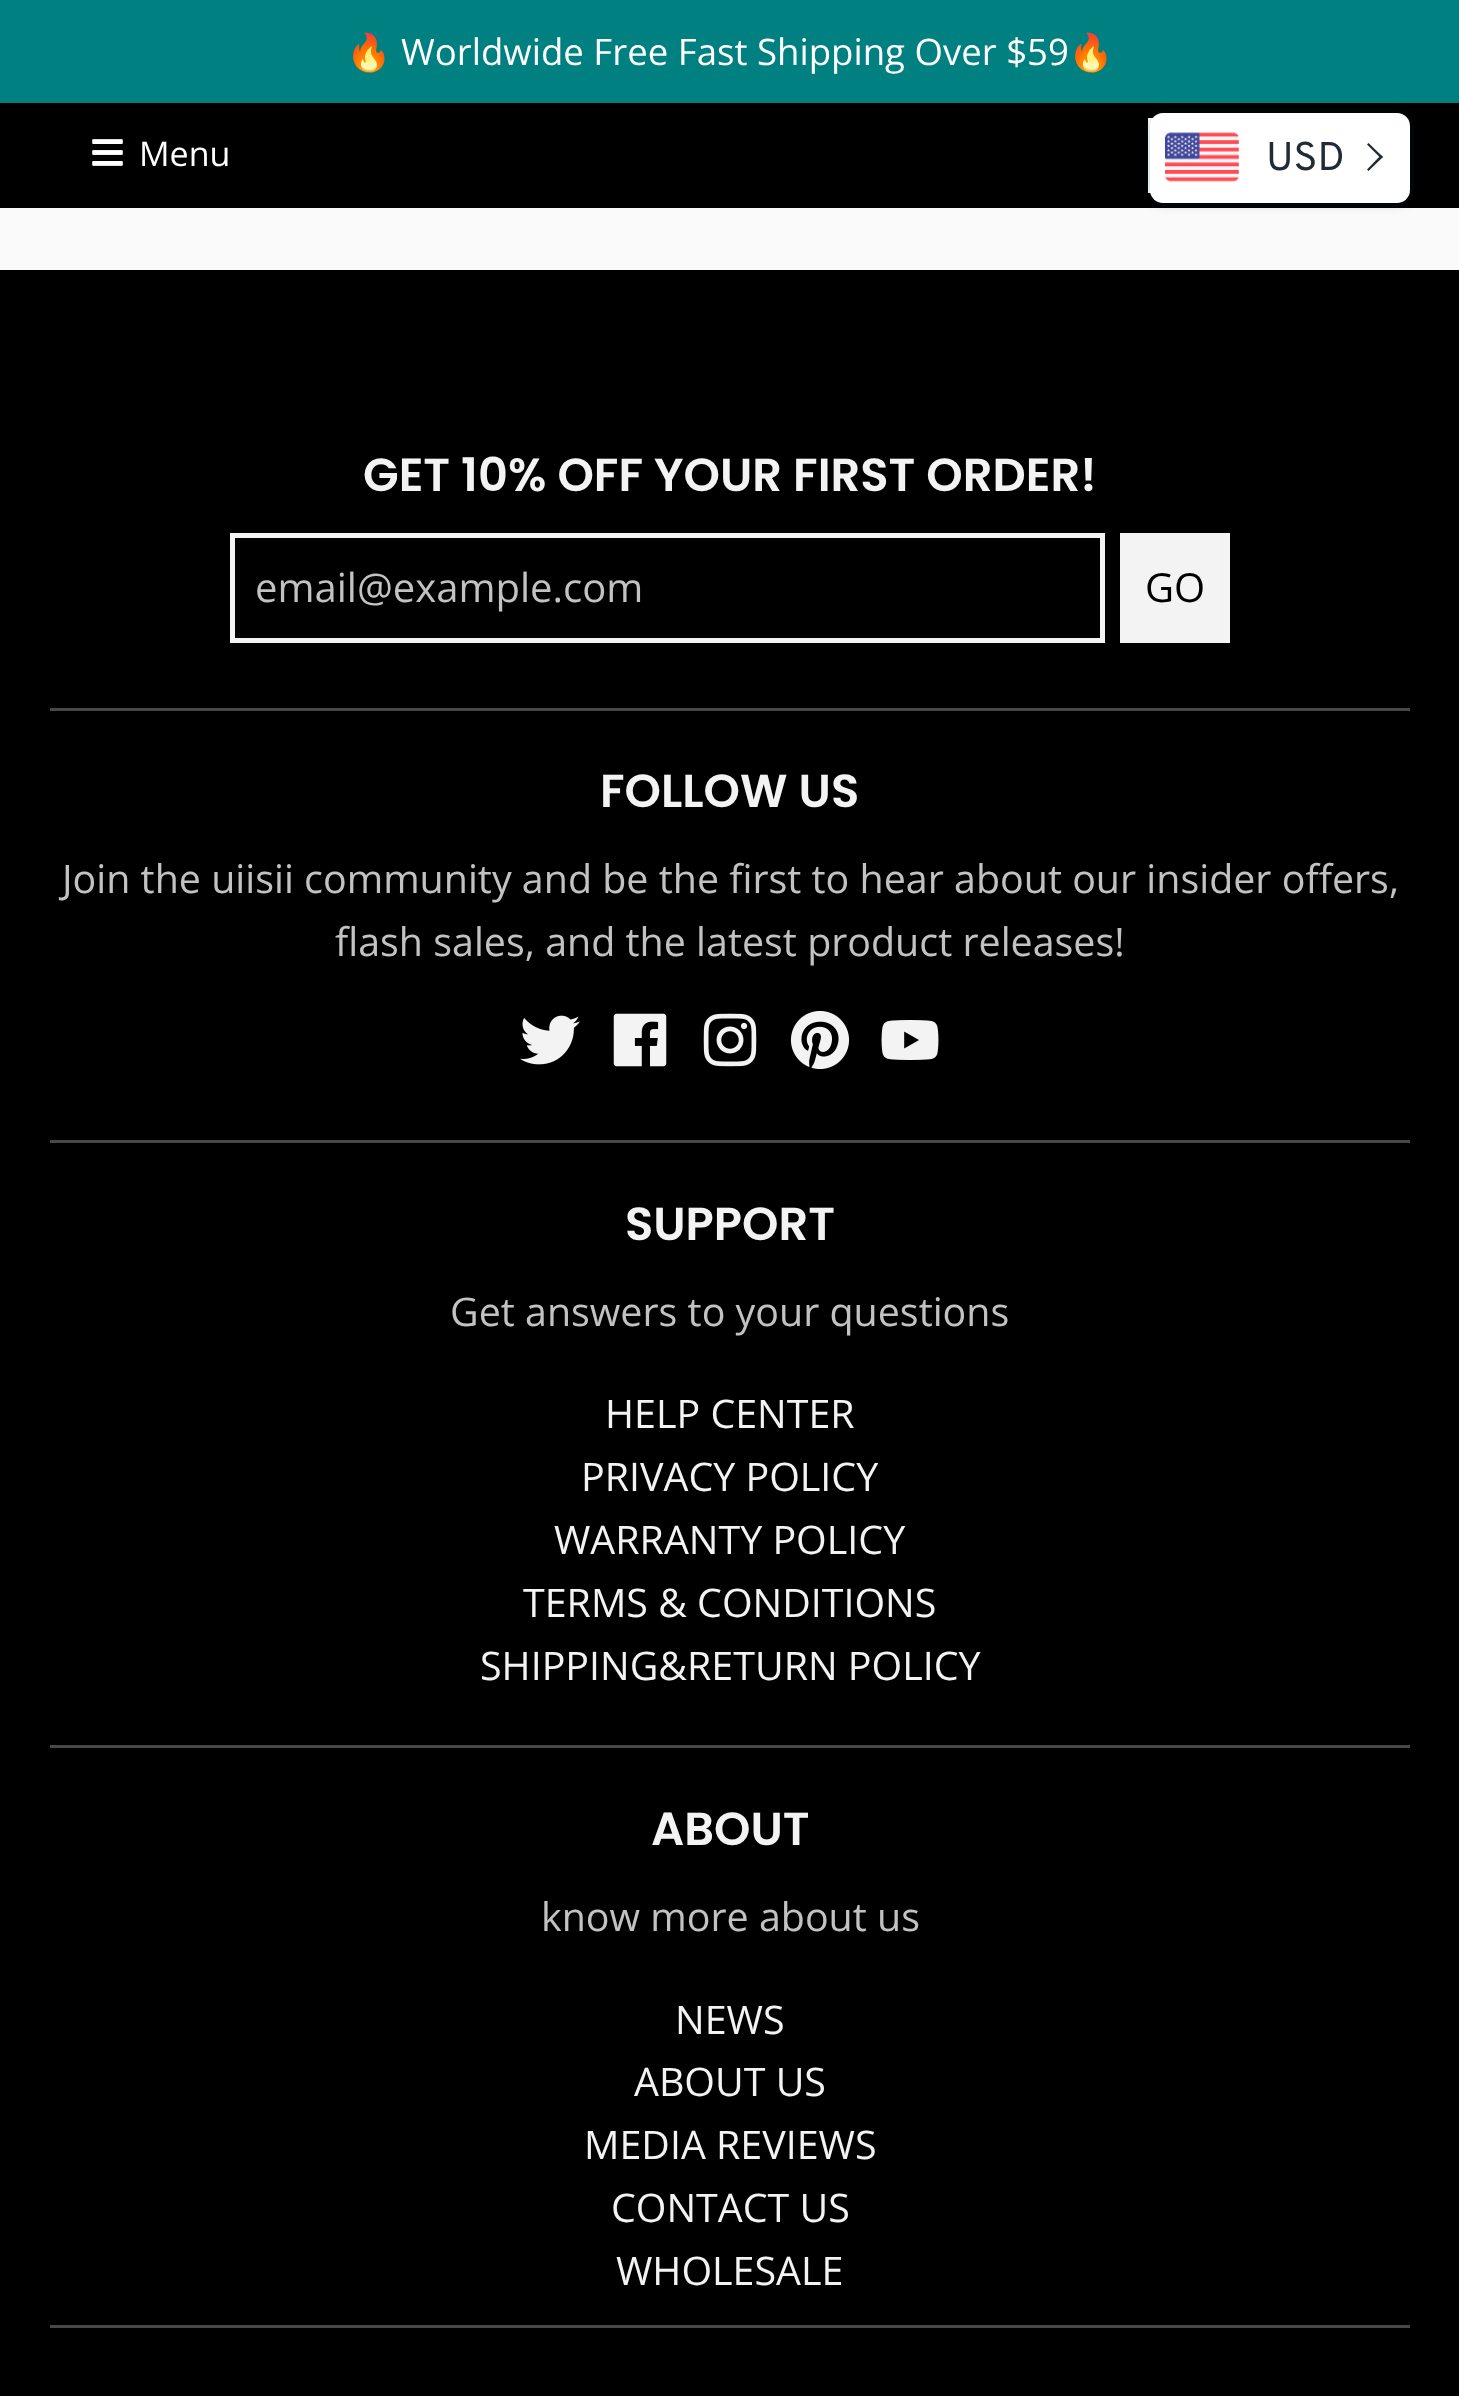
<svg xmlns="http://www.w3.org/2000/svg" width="1459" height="2396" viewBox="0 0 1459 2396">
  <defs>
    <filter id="blur1" x="-50%" y="-200%" width="200%" height="500%"><feGaussianBlur stdDeviation="6"/></filter>
  </defs>
  <rect width="100%" height="100%" fill="#fafafa"/>
  <rect x="0" y="0" width="1459" height="103" fill="#008080"/>
  <text x="346" y="65" font-family="Noto Color Emoji" font-size="36.6" fill="#ffffff">🔥</text>
  <text x="401" y="65" font-family="Open Sans" font-size="36.6" fill="#ffffff">Worldwide Free Fast Shipping Over $59</text>
  <text x="1068" y="65" font-family="Noto Color Emoji" font-size="36.6" fill="#ffffff">🔥</text>
  <rect x="0" y="103" width="1459" height="105" fill="#000000"/>
  <image x="92" y="139" width="31" height="27" href="img1.png"/>
  <text x="139" y="166" font-family="Open Sans" font-size="34" fill="#ffffff">Menu</text>
  <rect x="1150.5" y="120.5" width="207" height="70" fill="none" stroke="#ffffff" stroke-width="5"/>
  <rect x="0" y="270" width="1459" height="2126" fill="#000000"/>
  <text x="363" y="491" font-family="Poppins" font-size="46.4" font-weight="600" fill="#f3f3f3">GET 10% OFF YOUR FIRST ORDER!</text>
  <rect x="50" y="708" width="1360" height="3" fill="#484848"/>
  <rect x="232.5" y="535.5" width="870" height="105" fill="none" stroke="#f3f3f3" stroke-width="5"/>
  <text x="255" y="602" font-family="Open Sans" font-size="40" fill="#c2c2c2">email@example.com</text>
  <rect x="1120" y="533" width="110" height="110" fill="#f3f3f3"/>
  <text x="1145" y="602" font-family="Open Sans" font-size="40" fill="#000000">GO</text>
  <text x="600" y="807" font-family="Poppins" font-size="46.4" font-weight="600" fill="#f3f3f3">FOLLOW US</text>
  <text x="62" y="893" font-family="Open Sans" font-size="39.4" fill="#c2c2c2">Join the uiisii community and be the first to hear about our insider offers,</text>
  <text x="335" y="956" font-family="Open Sans" font-size="39.4" fill="#c2c2c2">flash sales, and the latest product releases!</text>
  <rect x="50" y="1140" width="1360" height="3" fill="#484848"/>
  <image x="520" y="1015" width="60" height="50" href="img2.png"/>
  <image x="613" y="1013" width="54" height="54" href="img3.png"/>
  <image x="703" y="1013" width="54" height="54" href="img4.png"/>
  <image x="790" y="1010" width="60" height="60" href="img5.png"/>
  <image x="881" y="1020" width="58" height="40" href="img6.png"/>
  <text x="625" y="1240" font-family="Poppins" font-size="46.4" font-weight="600" fill="#f3f3f3">SUPPORT</text>
  <text x="450" y="1326" font-family="Open Sans" font-size="39.4" fill="#c2c2c2">Get answers to your questions</text>
  <rect x="50" y="1745" width="1360" height="3" fill="#484848"/>
  <text x="605" y="1428" font-family="Open Sans" font-size="39.4" fill="#f3f3f3">HELP CENTER</text>
  <text x="581" y="1491" font-family="Open Sans" font-size="39.4" fill="#f3f3f3">PRIVACY POLICY</text>
  <text x="554" y="1554" font-family="Open Sans" font-size="39.4" fill="#f3f3f3">WARRANTY POLICY</text>
  <text x="523" y="1617" font-family="Open Sans" font-size="39.4" fill="#f3f3f3">TERMS &amp; CONDITIONS</text>
  <text x="480" y="1680" font-family="Open Sans" font-size="39.4" fill="#f3f3f3">SHIPPING&amp;RETURN POLICY</text>
  <text x="651" y="1845" font-family="Poppins" font-size="46.4" font-weight="600" fill="#f3f3f3">ABOUT</text>
  <text x="541" y="1931" font-family="Open Sans" font-size="39.4" fill="#c2c2c2">know more about us</text>
  <text x="675" y="2034" font-family="Open Sans" font-size="39.4" fill="#f3f3f3">NEWS</text>
  <text x="634" y="2096" font-family="Open Sans" font-size="39.4" fill="#f3f3f3">ABOUT US</text>
  <text x="584" y="2159" font-family="Open Sans" font-size="39.4" fill="#f3f3f3">MEDIA REVIEWS</text>
  <text x="611" y="2222" font-family="Open Sans" font-size="39.4" fill="#f3f3f3">CONTACT US</text>
  <text x="616" y="2285" font-family="Open Sans" font-size="39.4" fill="#f3f3f3">WHOLESALE</text>
  <rect x="50" y="2325" width="1360" height="3" fill="#484848"/>
  <rect x="1150" y="113" width="260" height="90" rx="13" fill="#212b36" fill-opacity="0.25" filter="url(#blur1)"/>
  <rect x="1150" y="113" width="260" height="90" rx="13" fill="#ffffff"/>
  <image x="1165" y="132" width="75" height="50" href="img7.png"/>
  <text x="1266" y="170" font-family="Overpass" font-size="40" fill="#212b36">USD</text>
  <path d="M1367 144.5L1368.5 143L1383 157L1381 158.5Z" fill="#212b36"/>
  <path d="M1367 169.5L1381 155L1383 157L1368.5 171Z" fill="#212b36"/>
</svg>
